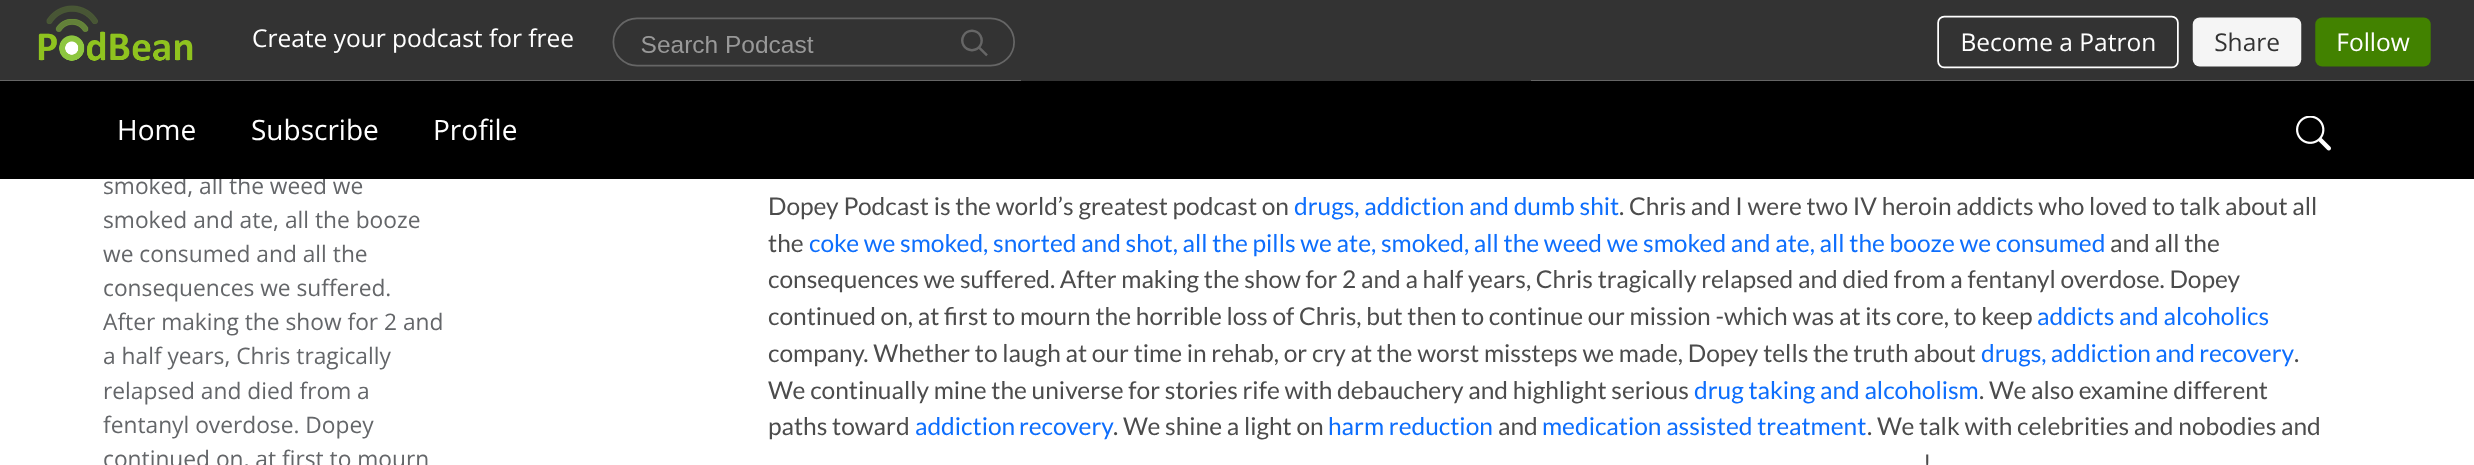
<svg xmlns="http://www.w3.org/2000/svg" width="2474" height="465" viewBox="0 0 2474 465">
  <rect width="100%" height="100%" fill="#ffffff"/>
  <rect x="0" y="0" width="2474" height="5" fill="#333333"/>
  <image x="0" y="5" width="2474" height="76" href="img1.png"/>
  <text x="103" y="194" font-family="Open Sans" font-size="22.75" fill="#646669">smoked, all the weed we</text>
  <rect x="0" y="81" width="2474" height="98" fill="#000000"/>
  <text x="117" y="140" font-family="Open Sans" font-size="28" fill="#ffffff">Home</text>
  <text x="251" y="140" font-family="Open Sans" font-size="28" fill="#ffffff">Subscribe</text>
  <text x="433" y="140" font-family="Open Sans" font-size="28" fill="#ffffff">Profile</text>
  <image x="2296" y="116" width="35" height="35" href="img2.png"/>
  <text x="103" y="228" font-family="Open Sans" font-size="22.75" fill="#646669">smoked and ate, all the booze</text>
  <text x="103" y="262" font-family="Open Sans" font-size="22.75" fill="#646669">we consumed and all the</text>
  <text x="103" y="296" font-family="Open Sans" font-size="22.75" fill="#646669">consequences we suffered.</text>
  <text x="103" y="330" font-family="Open Sans" font-size="22.75" fill="#646669">After making the show for 2 and</text>
  <text x="103" y="364" font-family="Open Sans" font-size="22.75" fill="#646669">a half years, Chris tragically</text>
  <text x="103" y="399" font-family="Open Sans" font-size="22.75" fill="#646669">relapsed and died from a</text>
  <text x="103" y="433" font-family="Open Sans" font-size="22.75" fill="#646669">fentanyl overdose. Dopey</text>
  <text x="103" y="467" font-family="Open Sans" font-size="22.75" fill="#646669">continued on, at first to mourn</text>
  <text x="768" y="215" font-family="Lato" font-size="24.5" fill="#4c4c4c">Dopey Podcast is the world’s greatest podcast on</text>
  <text x="1294" y="215" font-family="Lato" font-size="24.5" fill="#0d6efd">drugs, addiction and dumb shit</text>
  <text x="1619" y="215" font-family="Lato" font-size="24.5" fill="#4c4c4c">. Chris and I were two IV heroin addicts who loved to talk about all</text>
  <text x="768" y="252" font-family="Lato" font-size="24.5" fill="#4c4c4c">the</text>
  <text x="809" y="252" font-family="Lato" font-size="24.5" fill="#0d6efd">coke we smoked, snorted and shot, all the pills we ate, smoked, all the weed we smoked and ate, all the booze we consumed</text>
  <text x="2110" y="252" font-family="Lato" font-size="24.5" fill="#4c4c4c">and all the</text>
  <text x="768" y="288" font-family="Lato" font-size="24.5" fill="#4c4c4c">consequences we suffered. After making the show for 2 and a half years, Chris tragically relapsed and died from a fentanyl overdose. Dopey</text>
  <text x="768" y="325" font-family="Lato" font-size="24.5" fill="#4c4c4c">continued on, at first to mourn the horrible loss of Chris, but then to continue our mission -which was at its core, to keep</text>
  <text x="2037" y="325" font-family="Lato" font-size="24.5" fill="#0d6efd">addicts and alcoholics</text>
  <text x="768" y="362" font-family="Lato" font-size="24.5" fill="#4c4c4c">company. Whether to laugh at our time in rehab, or cry at the worst missteps we made, Dopey tells the truth about</text>
  <text x="1981" y="362" word-spacing="-0.5" font-family="Lato" font-size="24.5" fill="#0d6efd">drugs, addiction and recovery</text>
  <text x="2294" y="362" font-family="Lato" font-size="24.5" fill="#4c4c4c">.</text>
  <text x="768" y="399" font-family="Lato" font-size="24.5" fill="#4c4c4c">We continually mine the universe for stories rife with debauchery and highlight serious</text>
  <text x="1694" y="399" font-family="Lato" font-size="24.5" fill="#0d6efd">drug taking and alcoholism</text>
  <text x="1979" y="399" font-family="Lato" font-size="24.5" fill="#4c4c4c">. We also examine different</text>
  <text x="768" y="435" font-family="Lato" font-size="24.5" fill="#4c4c4c">paths toward</text>
  <text x="915" y="435" word-spacing="-1" font-family="Lato" font-size="24.5" fill="#0d6efd">addiction recovery</text>
  <text x="1113" y="435" font-family="Lato" font-size="24.5" fill="#4c4c4c">. We shine a light on</text>
  <text x="1328" y="435" font-family="Lato" font-size="24.5" fill="#0d6efd">harm reduction</text>
  <text x="1498" y="435" font-family="Lato" font-size="24.5" fill="#4c4c4c">and</text>
  <text x="1542" y="435" font-family="Lato" font-size="24.5" fill="#0d6efd">medication assisted treatment</text>
  <text x="1867" y="435" font-family="Lato" font-size="24.5" fill="#4c4c4c">. We talk with celebrities and nobodies and</text>
  <text x="1923" y="472" font-family="Lato" font-size="24.5" fill="#4c4c4c">!</text>
</svg>
